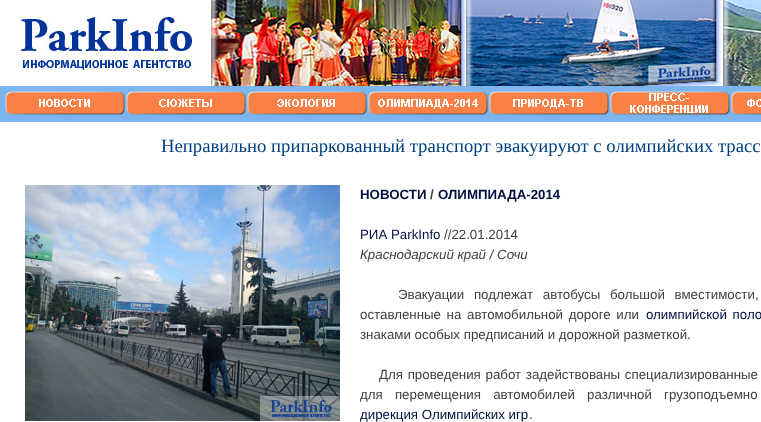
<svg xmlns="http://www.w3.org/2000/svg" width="761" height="422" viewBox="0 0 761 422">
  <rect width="100%" height="100%" fill="#ffffff"/>
  <image x="20" y="16" width="174" height="54" href="img1.png"/>
  <image x="466" y="0" width="256" height="86" href="img3.png"/>
  <image x="211" y="0" width="256" height="86" href="img2.png"/>
  <image x="723" y="0" width="38" height="86" href="img4.png"/>
  <rect x="0" y="86" width="761" height="36" fill="#7bb5ef"/>
  <image x="5" y="91" width="120" height="24" href="img5.png"/>
  <image x="126" y="91" width="120" height="24" href="img6.png"/>
  <image x="247" y="91" width="120" height="24" href="img7.png"/>
  <image x="368" y="91" width="120" height="24" href="img8.png"/>
  <image x="489" y="91" width="120" height="24" href="img9.png"/>
  <image x="610" y="91" width="120" height="24" href="img10.png"/>
  <image x="731" y="91" width="30" height="24" href="img11.png"/>
  <text x="161" y="152" font-family="Liberation Serif" font-size="18.7" fill="#004080">Неправильно припаркованный транспорт эвакуируют с олимпийских трасс</text>
  <image x="25" y="185" width="315" height="236" href="img12.png"/>
  <text x="360" y="199" font-family="Liberation Sans" font-size="13.3" font-weight="bold" fill="#001040">НОВОСТИ</text>
  <text x="430" y="199" font-family="Liberation Sans" font-size="13.3" font-weight="bold" fill="#404040">/</text>
  <text x="438" y="199" font-family="Liberation Sans" font-size="13.3" font-weight="bold" fill="#001040">ОЛИМПИАДА-2014</text>
  <text x="360" y="239" font-family="Liberation Sans" font-size="13.3" fill="#001040">РИА ParkInfo</text>
  <text x="444" y="239" font-family="Liberation Sans" font-size="13.3" fill="#404040">//22.01.2014</text>
  <text x="360" y="259" font-family="Liberation Sans" font-size="13.3" font-style="italic" fill="#404040">Краснодарский край / Сочи</text>
  <text x="398" y="299" word-spacing="6" font-family="Liberation Sans" font-size="13.3" fill="#404040">Эвакуации подлежат автобусы большой вместимости,</text>
  <text x="360" y="319" word-spacing="2" font-family="Liberation Sans" font-size="13.3" fill="#404040">оставленные на автомобильной дороге или</text>
  <text x="646" y="319" word-spacing="2" font-family="Liberation Sans" font-size="13.3" fill="#001040">олимпийской поло</text>
  <text x="360" y="339" font-family="Liberation Sans" font-size="13.3" fill="#404040">знаками особых предписаний и дорожной разметкой.</text>
  <text x="379" y="379" word-spacing="1" font-family="Liberation Sans" font-size="13.3" fill="#404040">Для проведения работ задействованы специализированные</text>
  <text x="360" y="399" word-spacing="8.5" font-family="Liberation Sans" font-size="13.3" fill="#404040">для перемещения автомобилей различной грузоподъемно</text>
  <text x="360" y="419" font-family="Liberation Sans" font-size="13.3" fill="#001040">дирекция Олимпийских игр</text>
  <text x="529" y="419" font-family="Liberation Sans" font-size="13.3" fill="#404040">.</text>
</svg>
